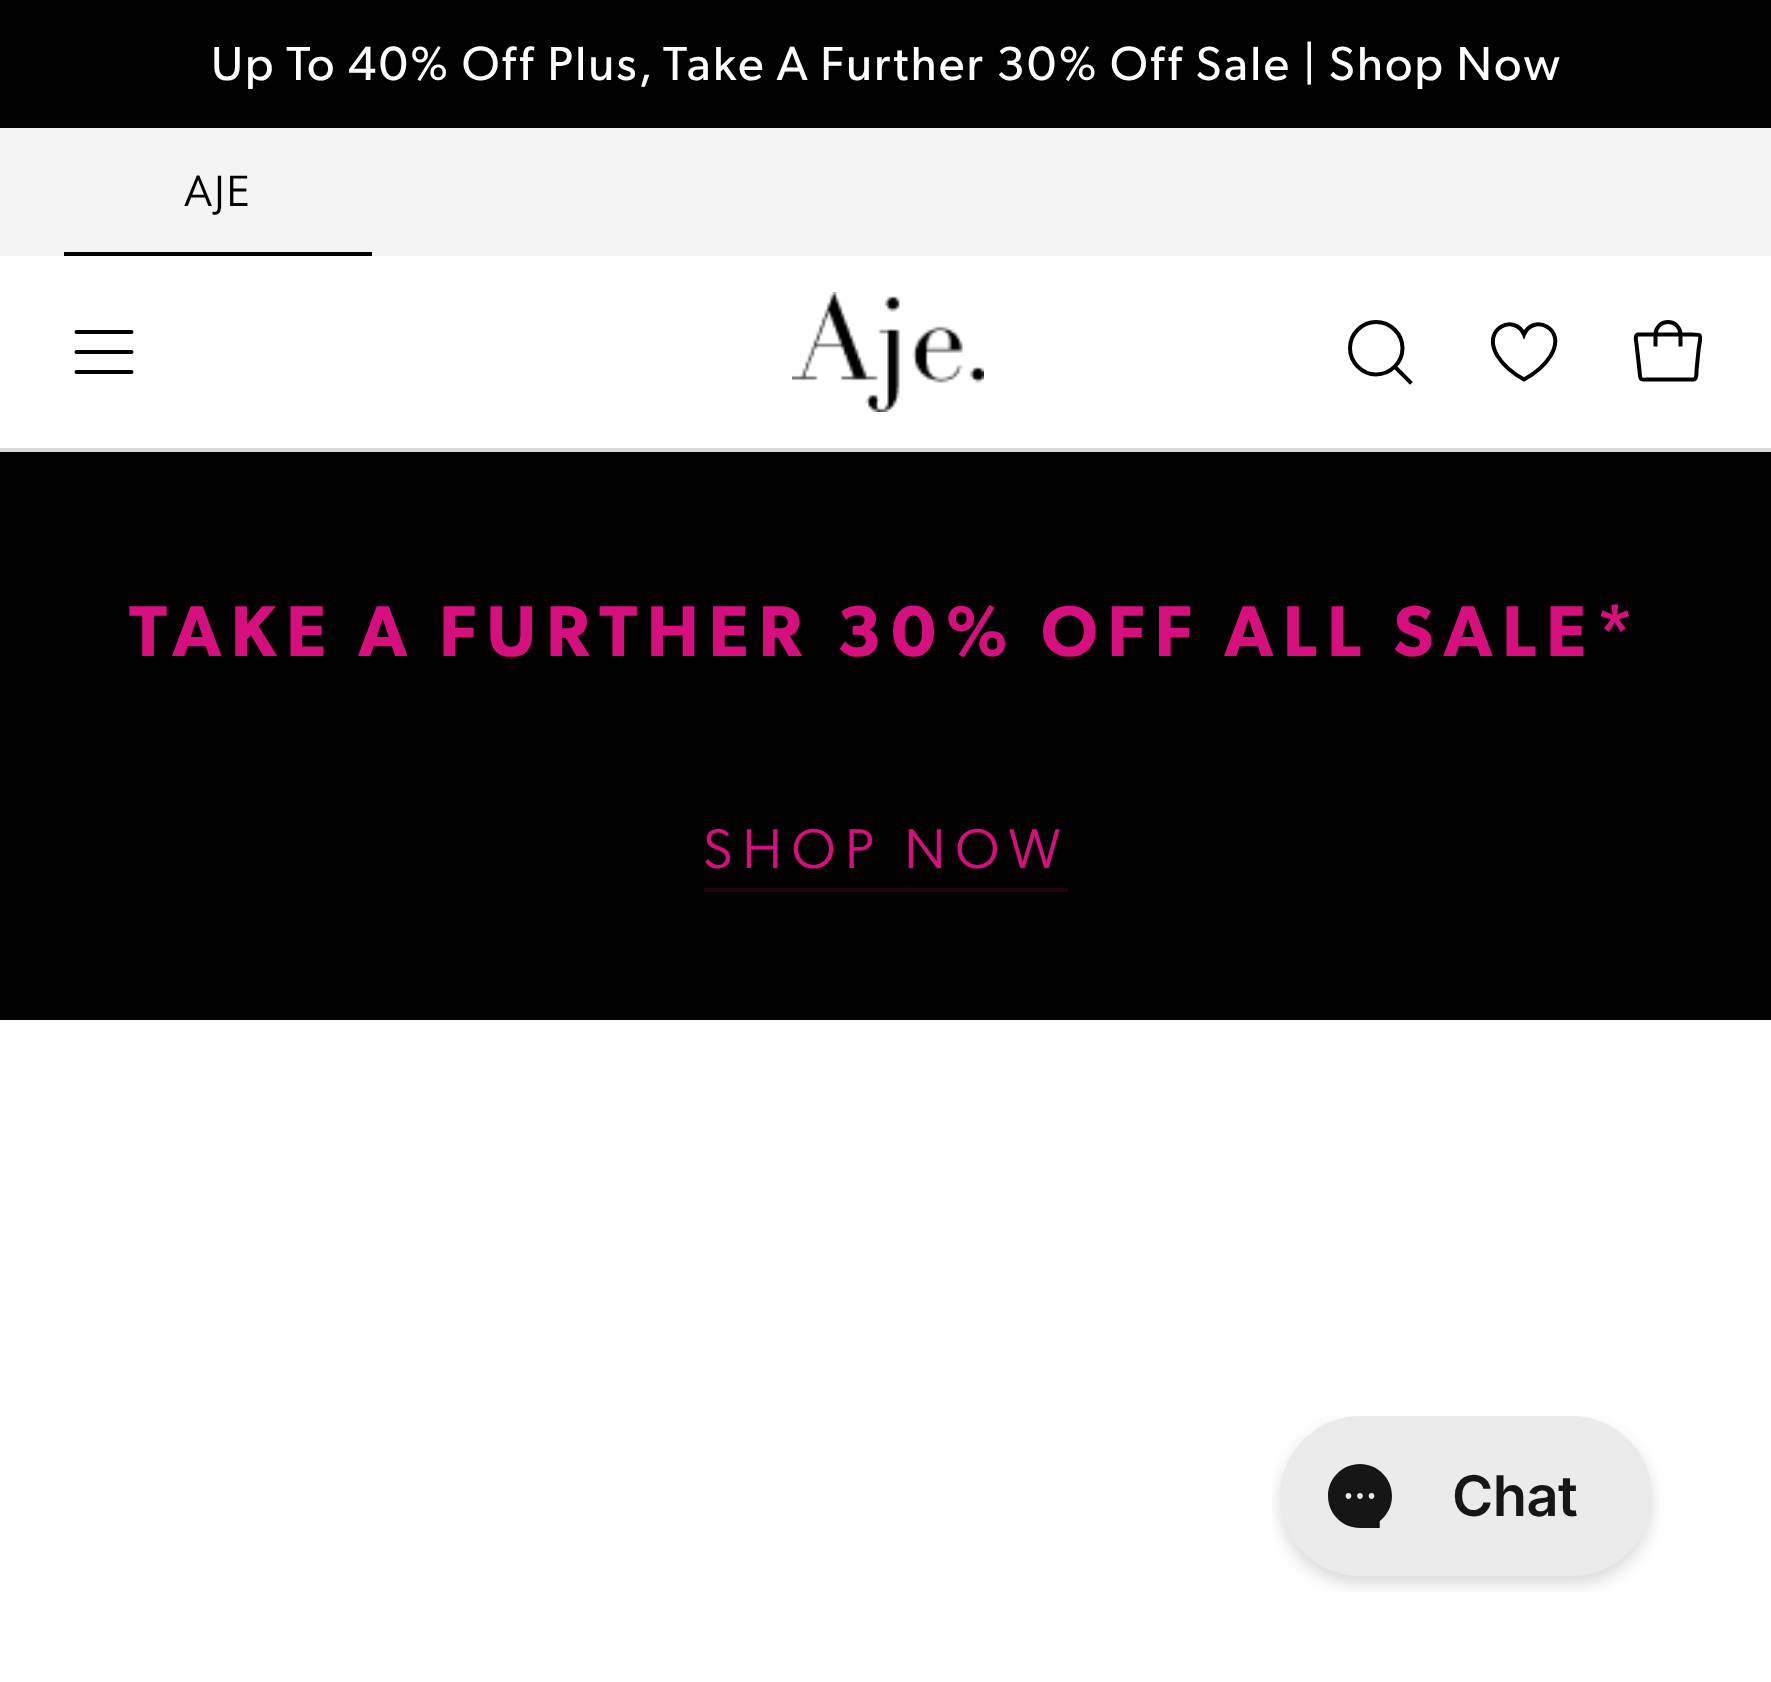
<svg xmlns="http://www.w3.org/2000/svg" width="1771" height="1682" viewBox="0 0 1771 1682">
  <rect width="100%" height="100%" fill="#ffffff"/>
  <rect x="0" y="0" width="1771" height="128" fill="#000000"/>
  <text x="211" y="80" font-family="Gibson" font-size="48" letter-spacing="2" fill="#ffffff">Up To 40% Off Plus, Take A Further 30% Off Sale | Shop Now</text>
  <rect x="0" y="448" width="1771" height="4" fill="#d9d9d9"/>
  <rect x="0" y="128" width="1771" height="128" fill="#f4f4f4"/>
  <text x="184" y="206" font-family="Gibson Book" font-size="44" letter-spacing="2" fill="#000000">AJE</text>
  <rect x="64" y="252" width="308" height="4" fill="#000000"/>
  <path d="M76.5 352H131.5M76.5 332H131.5M76.5 372H131.5" fill="none" stroke="#000000" stroke-width="4" stroke-linecap="round" stroke-linejoin="round"/>
  <image x="792" y="292" width="192" height="120" href="img1.png"/>
  <path d="M1376 374.5C1390.5 374.5 1402.5 362.5 1402.5 348C1402.5 334 1390.5 322 1376 322C1362 322 1350 334 1350 348C1350 362.5 1362 374.5 1376 374.5Z" fill="none" stroke="#000000" stroke-width="4" stroke-linecap="round" stroke-linejoin="round"/>
  <path d="M1395 367L1410 382" fill="none" stroke="#000000" stroke-width="4" stroke-linecap="square" stroke-linejoin="round"/>
  <path d="M1524 379.5C1514 374 1503.5 365.5 1497.5 356C1480.5 327.5 1515.5 313.5 1524 334.5C1532.5 313.5 1568 327.5 1550.5 356C1544.5 365.5 1534 374 1524 379.5Z" fill="none" stroke="#000000" stroke-width="4" stroke-linecap="round"/>
  <path d="M1693.5 379.5H1651C1639.5 379.5 1640.5 381.5 1639.5 370.5L1636.5 344C1636.5 343 1634 334.5 1638.5 334.5H1688C1704 334.5 1700.5 333 1698.5 350.5L1696.5 370.5C1696.5 372 1697 379.5 1693.5 379.5Z" fill="none" stroke="#000000" stroke-width="4" stroke-linecap="round"/>
  <path d="M1655.5 344.5V334.5C1655.5 327.5 1661 322 1668 322C1675 322 1680.5 327.5 1680.5 334.5V344.5" fill="none" stroke="#000000" stroke-width="4" stroke-linecap="square" stroke-linejoin="round"/>
  <rect x="0" y="452" width="1771" height="568" fill="#000000"/>
  <text x="129" y="656" font-family="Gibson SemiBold" font-size="72" font-weight="600" letter-spacing="9.6" fill="#d70f7e">TAKE A FURTHER 30% OFF ALL SALE*</text>
  <text x="703" y="868" font-family="Gibson Book" font-size="56" letter-spacing="9.6" fill="#d70f7e">SHOP NOW</text>
  <rect x="704" y="888" width="364" height="4" fill="#200213"/>
  <image x="1272" y="1416" width="388" height="176" href="img2.png"/>
</svg>
